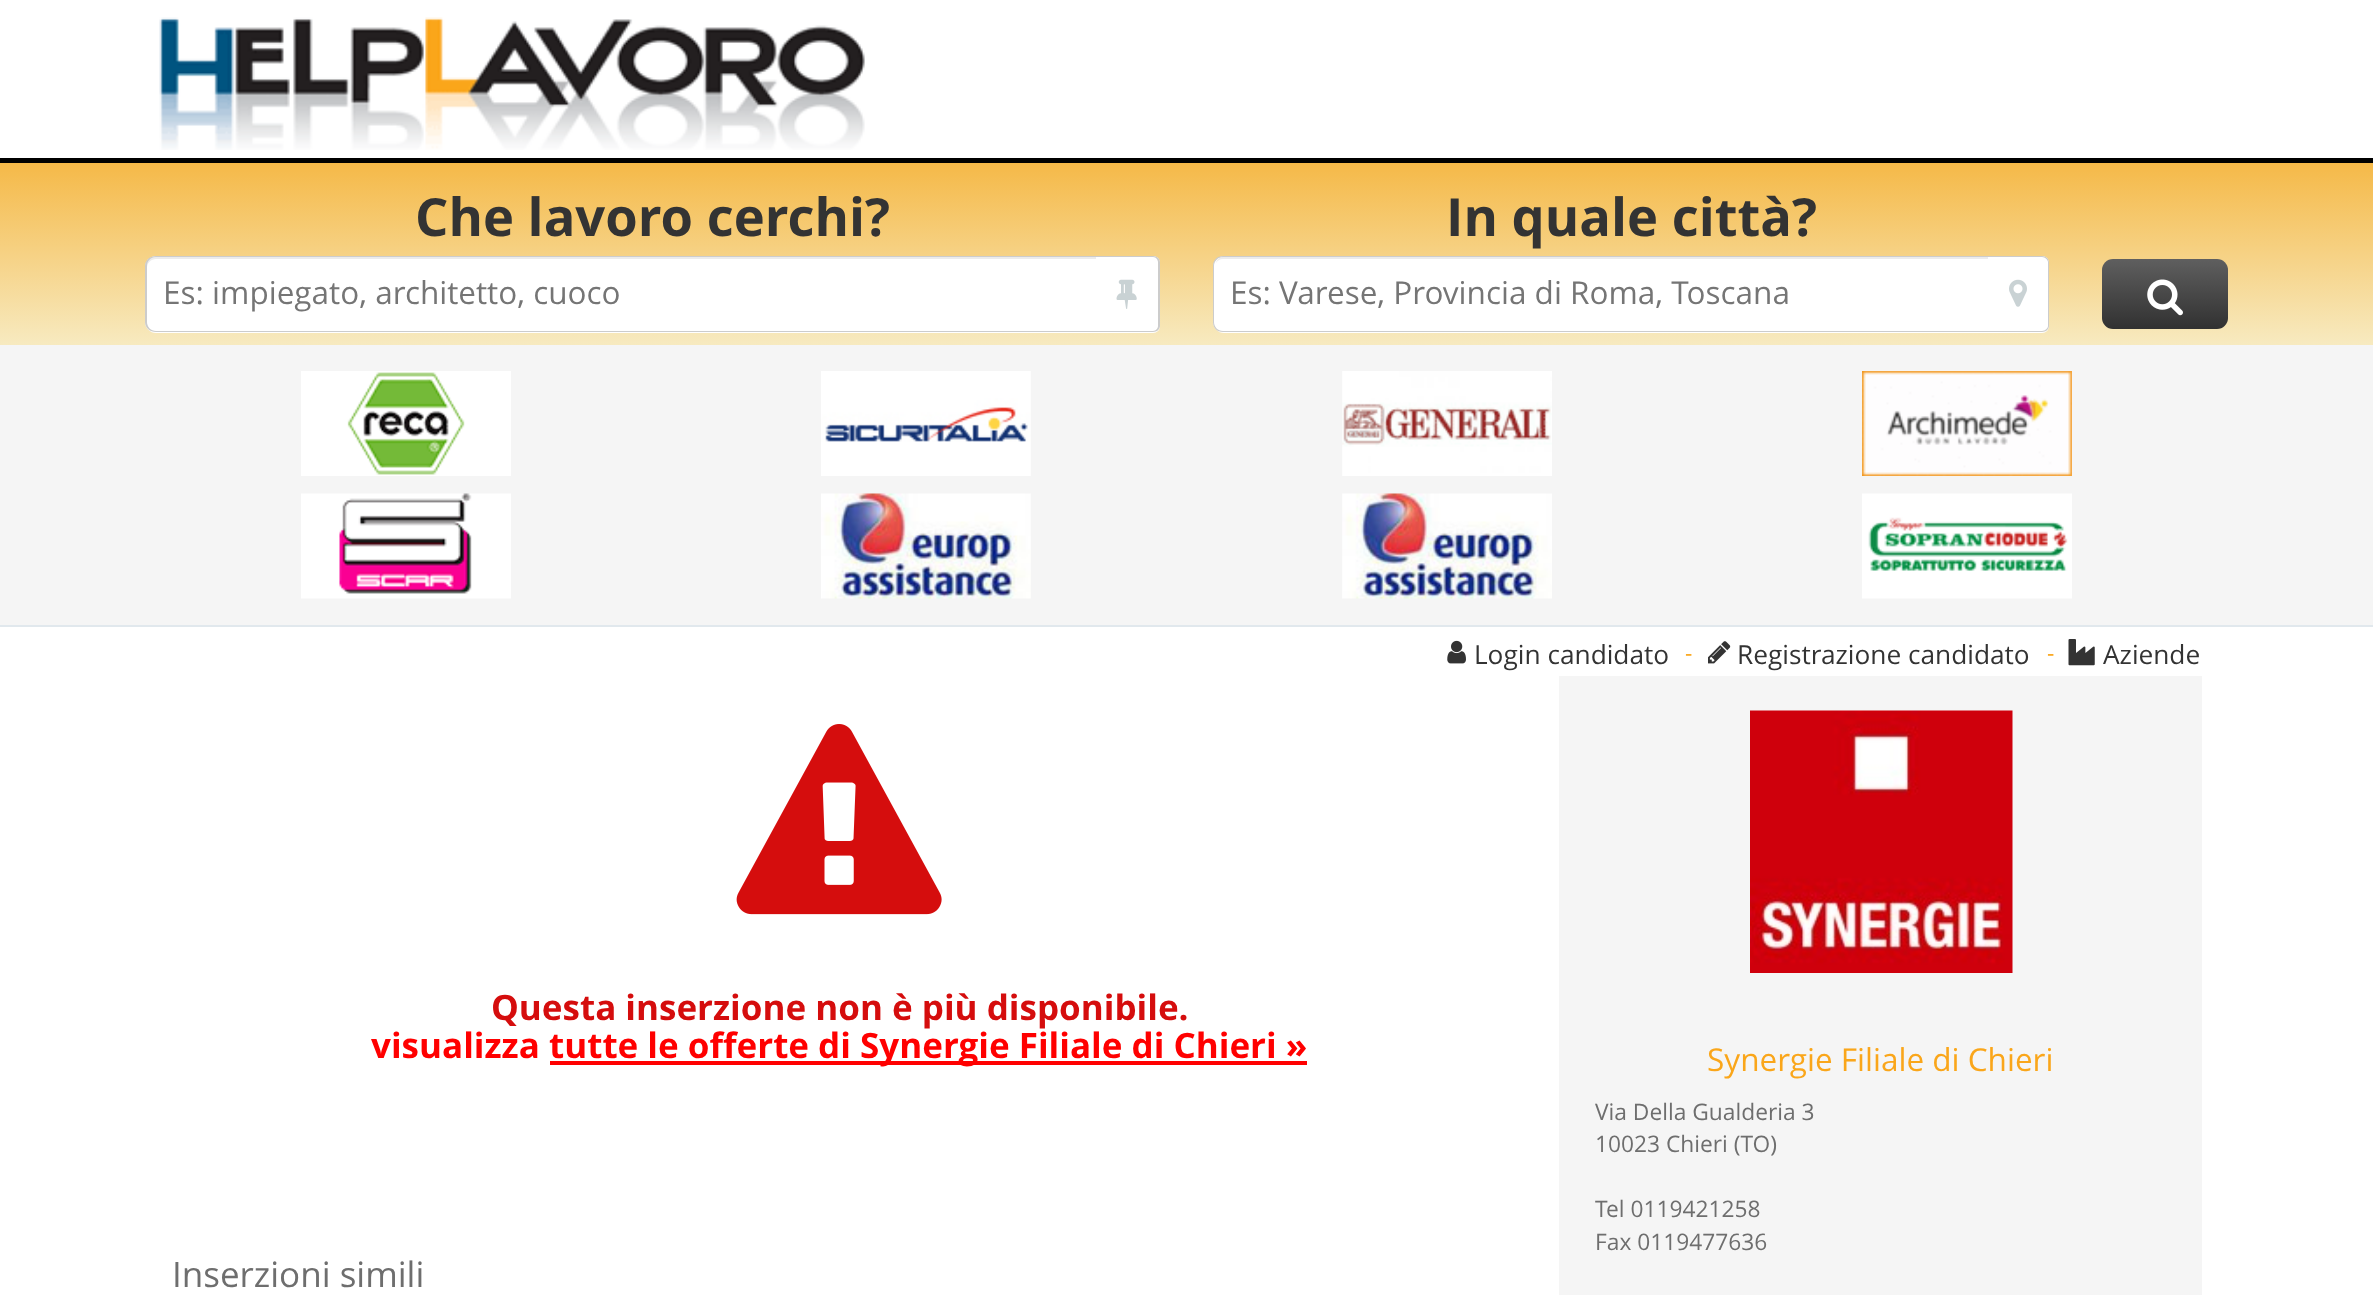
<svg xmlns="http://www.w3.org/2000/svg" width="2373" height="1295" viewBox="0 0 2373 1295">
  <defs>
    <linearGradient id="g1" gradientUnits="userSpaceOnUse" x1="1187" y1="163" x2="1187" y2="345"><stop offset="0" stop-color="#f5b948"/><stop offset="1" stop-color="#f7eac0"/></linearGradient>
    <linearGradient id="g2" gradientUnits="userSpaceOnUse" x1="2165" y1="259" x2="2165" y2="329"><stop offset="0" stop-color="#5f5f5f"/><stop offset="1" stop-color="#313131"/></linearGradient>
  </defs>
  <rect width="100%" height="100%" fill="#ffffff"/>
  <image x="159" y="17" width="706" height="133" href="img1.png"/>
  <rect x="0" y="158" width="2373" height="5" fill="#000000"/>
  <rect x="0" y="163" width="2373" height="182" fill="url(#g1)"/>
  <text x="415" y="236" font-family="Open Sans" font-size="52.5" font-weight="bold" fill="#333333">Che lavoro cerchi?</text>
  <path d="M156 256H1096V333H156C150 333 145 328 145 322V267C145 261 150 256 156 256Z" fill="#ffffff"/>
  <path d="M156 259H1096V257H156C151 257 147 261 147 266V268C147 263 151 259 156 259Z" fill="#ececec"/>
  <path d="M156 256H1096V332H156C150 332 145 328 145 322V266C145 260 150 256 156 256ZM156 257H1096V331H156C151 331 147 327 147 322V266C147 261 151 257 156 257Z" fill="#cccccc" fill-rule="evenodd"/>
  <text x="163" y="304" font-family="Open Sans" font-size="31.5" fill="#757575">Es: impiegato, architetto, cuoco</text>
  <path d="M1096 256H1153C1157 256 1160 259 1160 263V326C1160 330 1157 333 1153 333H1096Z" fill="#ffffff"/>
  <path d="M1096 256H1153C1157 256 1160 259 1160 262V326C1160 329 1157 332 1153 332H1096ZM1096 257H1153C1156 257 1158 260 1158 262V326C1158 328 1156 331 1153 331H1096Z" fill="#cccccc" fill-rule="evenodd"/>
  <image x="1116" y="279" width="21" height="30" href="img2.png"/>
  <text x="1446" y="236" font-family="Open Sans" font-size="52.5" font-weight="bold" fill="#333333">In quale città?</text>
  <path d="M1224 256H1988V333H1224C1218 333 1213 328 1213 322V267C1213 261 1218 256 1224 256Z" fill="#ffffff"/>
  <path d="M1223 259H1988V257H1224C1220 257 1217 259 1216 263C1217 261 1220 259 1223 259Z" fill="#ececec"/>
  <path d="M1223 256H1988V332H1223C1217 332 1213 328 1213 322V266C1213 260 1217 256 1223 256ZM1223 257H1988V331H1223C1218 331 1214 327 1214 322V266C1214 261 1218 257 1223 257Z" fill="#cccccc" fill-rule="evenodd"/>
  <text x="1230" y="304" font-family="Open Sans" font-size="31.5" fill="#757575">Es: Varese, Provincia di Roma, Toscana</text>
  <path d="M1988 256H2042C2046 256 2049 259 2049 263V326C2049 330 2046 333 2042 333H1988Z" fill="#ffffff"/>
  <path d="M1988 256H2042C2046 256 2049 259 2049 262V326C2049 329 2046 332 2042 332H1988ZM1988 257H2042C2045 257 2048 260 2048 262V326C2048 328 2045 331 2042 331H1988Z" fill="#cccccc" fill-rule="evenodd"/>
  <image x="2009" y="279" width="18" height="28" href="img3.png"/>
  <rect x="2102" y="259" width="126" height="70" rx="11" fill="url(#g2)"/>
  <image x="2147" y="279" width="36" height="37" href="img4.png"/>
  <rect x="0" y="345" width="2373" height="280" fill="#f5f5f5"/>
  <rect x="0" y="625" width="2373" height="2" fill="#e1e8ed"/>
  <image x="301" y="371" width="210" height="105" href="img5.png"/>
  <image x="821" y="371" width="210" height="105" href="img6.png"/>
  <image x="1342" y="371" width="210" height="105" href="img7.png"/>
  <image x="1862" y="371" width="210" height="105" href="img8.png"/>
  <image x="301" y="493" width="210" height="106" href="img9.png"/>
  <image x="821" y="493" width="210" height="106" href="img10.png"/>
  <image x="1342" y="493" width="210" height="106" href="img11.png"/>
  <image x="1862" y="493" width="210" height="106" href="img12.png"/>
  <image x="1447" y="640" width="19" height="24" href="img13.png"/>
  <text x="1474" y="664" font-family="Open Sans" font-size="26.25" fill="#333333">Login candidato</text>
  <text x="1685" y="661" font-family="Open Sans" font-size="22.75" fill="#faa61a">-</text>
  <image x="1708" y="641" width="23" height="23" href="img14.png"/>
  <text x="1737" y="664" font-family="Open Sans" font-size="26.25" fill="#333333">Registrazione candidato</text>
  <text x="2047" y="661" font-family="Open Sans" font-size="22.75" fill="#faa61a">-</text>
  <image x="2068" y="639" width="27" height="27" href="img15.png"/>
  <text x="2103" y="664" font-family="Open Sans" font-size="26.25" fill="#333333">Aziende</text>
  <image x="736" y="724" width="206" height="191" href="img16.png"/>
  <text x="491" y="1020" font-family="Open Sans" font-size="35" font-weight="bold" fill="#d50d0d">Questa inserzione non è più disponibile.</text>
  <text x="371" y="1058" font-family="Open Sans" font-size="35" font-weight="bold" fill="#ff0000">visualizza</text>
  <rect x="550" y="1061" width="757" height="4" fill="#ff0000"/>
  <text x="549" y="1058" font-family="Open Sans" font-size="35" font-weight="bold" fill="#ff0000">tutte le offerte di Synergie Filiale di Chieri »</text>
  <text x="172" y="1287" font-family="Open Sans" font-size="35" fill="#6e6e6e">Inserzioni simili</text>
  <rect x="1559" y="676" width="643" height="619" fill="#f5f5f5"/>
  <image x="1750" y="710" width="263" height="263" href="img17.png"/>
  <text x="1707" y="1071" font-family="Open Sans" font-size="31.5" fill="#faa61a">Synergie Filiale di Chieri</text>
  <text x="1595" y="1120" font-family="Open Sans" font-size="22.75" fill="#6e6e6e">Via Della Gualderia 3</text>
  <text x="1595" y="1152" font-family="Open Sans" font-size="22.75" fill="#6e6e6e">10023 Chieri (TO)</text>
  <text x="1595" y="1217" font-family="Open Sans" font-size="22.75" fill="#6e6e6e">Tel 0119421258</text>
  <text x="1595" y="1250" font-family="Open Sans" font-size="22.75" fill="#6e6e6e">Fax 0119477636</text>
</svg>
